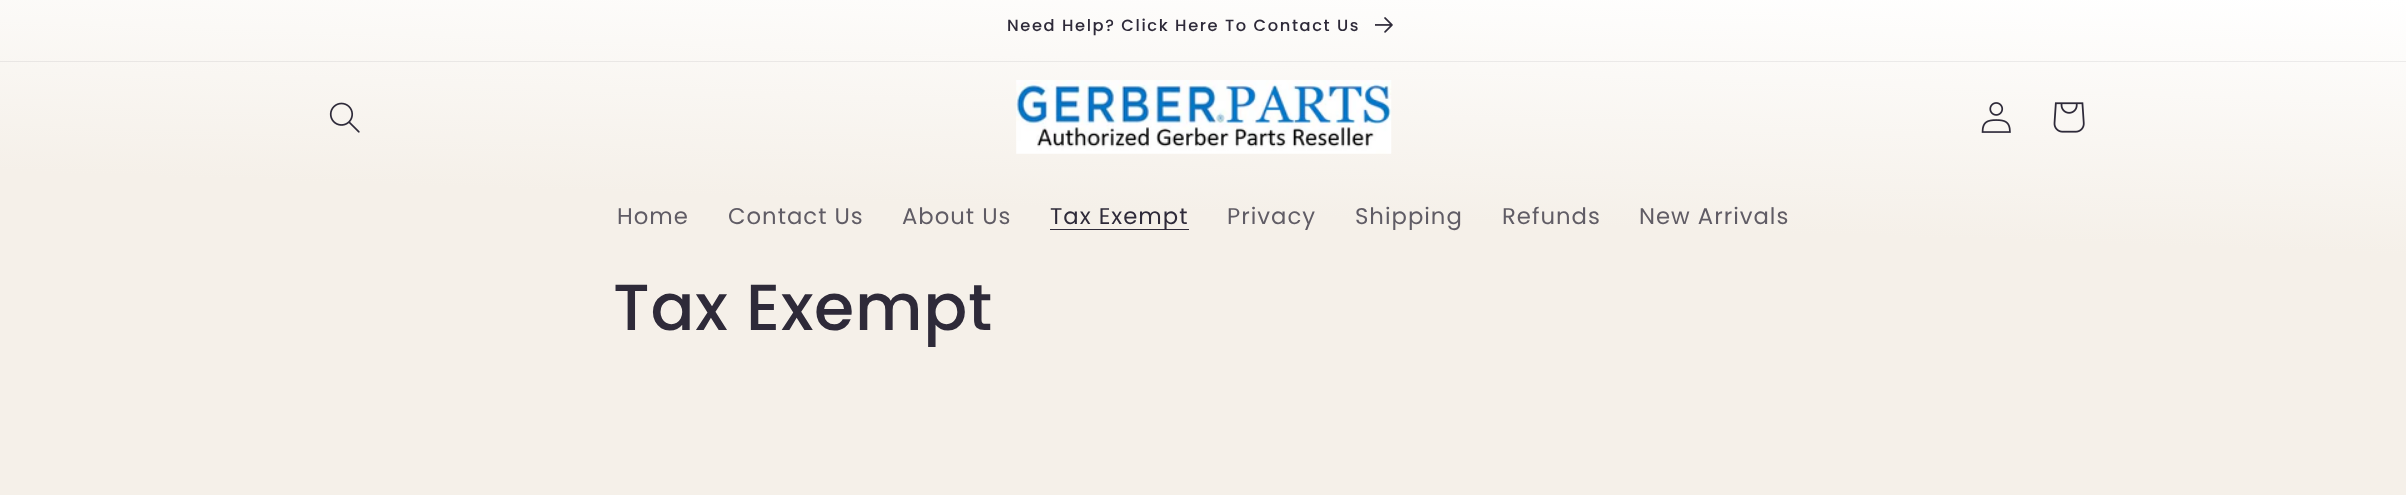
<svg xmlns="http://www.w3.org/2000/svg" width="2406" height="495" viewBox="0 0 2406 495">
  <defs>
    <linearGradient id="g1" gradientUnits="userSpaceOnUse" x1="1213" y1="-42" x2="1193" y2="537"><stop offset="0" stop-color="#ffffff"/><stop offset="0.44" stop-color="#f5f0e9"/></linearGradient>
    <linearGradient id="g2" gradientUnits="userSpaceOnUse" x1="1213" y1="-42" x2="1193" y2="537"><stop offset="0" stop-color="#eeeeef"/><stop offset="0.44" stop-color="#e5e0db"/></linearGradient>
  </defs>
  <rect width="100%" height="100%" fill="#ffffff"/>
  <rect x="0" y="0" width="2406" height="495" fill="url(#g1)"/>
  <rect x="0" y="61" width="2406" height="1" fill="url(#g2)"/>
  <text x="1007" y="31" font-family="Poppins" font-size="16.25" font-weight="500" letter-spacing="1.6" fill="#2e2a39">Need Help? Click Here To Contact Us</text>
  <image x="1375" y="17" width="18" height="16" href="img1.png"/>
  <image x="329" y="102" width="31" height="31" href="img2.png"/>
  <image x="1016" y="80" width="376" height="74" href="img3.png"/>
  <image x="1981" y="102" width="30" height="31" href="img4.png"/>
  <image x="2053" y="102" width="32" height="31" href="img5.png"/>
  <text x="617" y="224" font-family="Poppins" font-size="22.75" letter-spacing="1" fill="#605c65">Home</text>
  <text x="728" y="224" font-family="Poppins" font-size="22.75" letter-spacing="1" fill="#605c65">Contact Us</text>
  <text x="902" y="224" font-family="Poppins" font-size="22.75" letter-spacing="1" fill="#605c65">About Us</text>
  <rect x="1050" y="229" width="139" height="1" fill="#2e2a39"/>
  <text x="1050" y="224" font-family="Poppins" font-size="22.75" letter-spacing="1" fill="#2e2a39">Tax Exempt</text>
  <text x="1227" y="224" font-family="Poppins" font-size="22.75" letter-spacing="1" fill="#605c65">Privacy</text>
  <text x="1355" y="224" font-family="Poppins" font-size="22.75" letter-spacing="1" fill="#605c65">Shipping</text>
  <text x="1502" y="224" font-family="Poppins" font-size="22.75" letter-spacing="1" fill="#605c65">Refunds</text>
  <text x="1639" y="224" font-family="Poppins" font-size="22.75" letter-spacing="1" fill="#605c65">New Arrivals</text>
  <text x="613" y="330" font-family="Poppins" font-size="65" font-weight="500" letter-spacing="0.75" fill="#2e2a39">Tax Exempt</text>
</svg>
